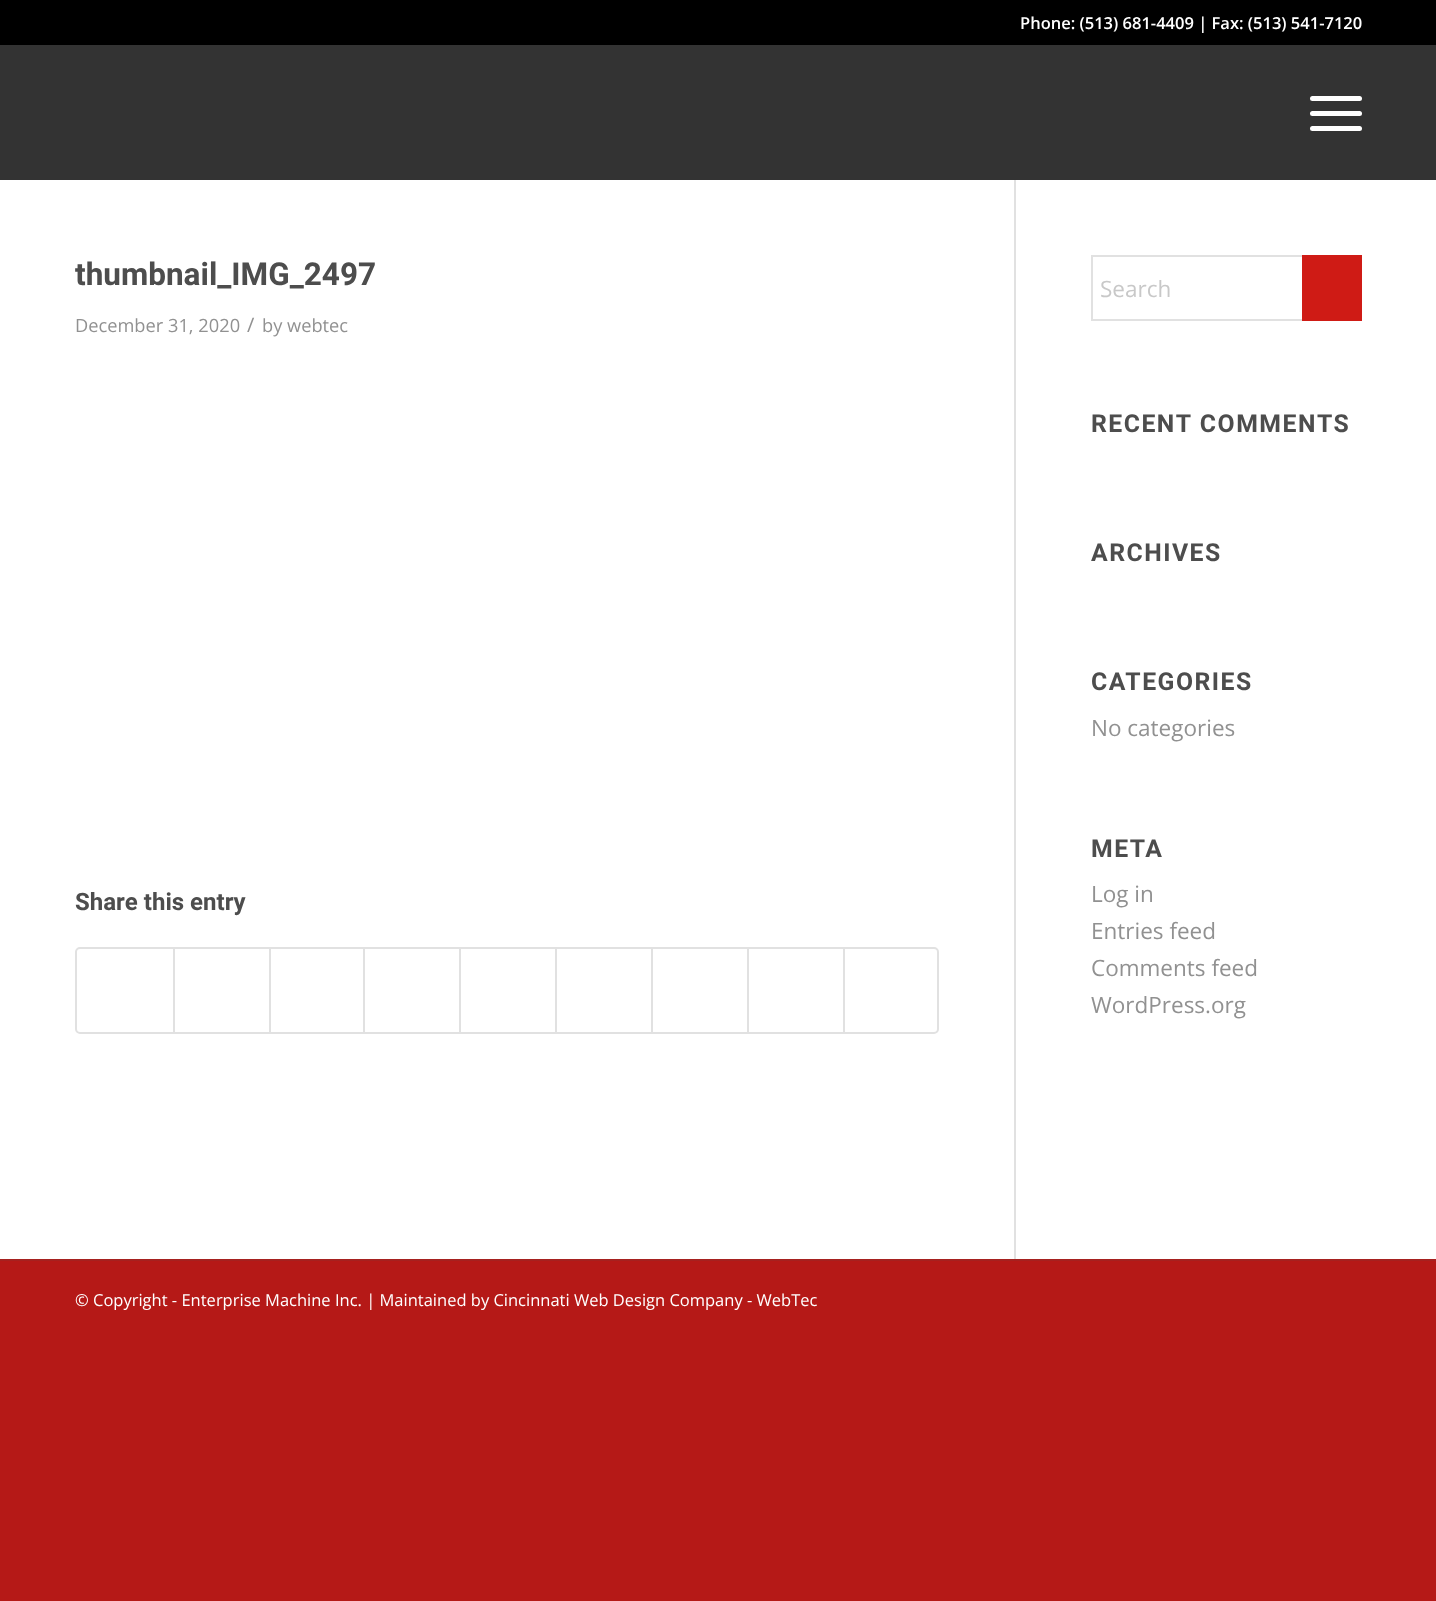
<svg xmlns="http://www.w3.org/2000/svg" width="1436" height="1601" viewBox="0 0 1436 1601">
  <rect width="100%" height="100%" fill="#b51917"/>
  <rect x="0" y="0" width="1436" height="45" fill="#000000"/>
  <text x="1020" y="29" font-family="Open Sans" font-size="16.5" font-weight="600" fill="#ffffff">Phone: (513) 681-4409 | Fax: (513) 541-7120</text>
  <rect x="0" y="45" width="1436" height="135" fill="#333333"/>
  <rect x="1310" y="111" width="52" height="5" rx="2.5" fill="#ffffff"/>
  <rect x="1310" y="96" width="52" height="5" rx="2.5" fill="#ffffff"/>
  <rect x="1310" y="126" width="52" height="5" rx="2.5" fill="#ffffff"/>
  <rect x="0" y="180" width="1436" height="1079" fill="#ffffff"/>
  <rect x="1014" y="180" width="2" height="1079" fill="#e1e1e1"/>
  <text x="75" y="285" font-family="Heebo" font-size="31.5" font-weight="bold" fill="#4d4d4d">thumbnail_IMG_2497</text>
  <text x="75" y="332" font-family="Open Sans" font-size="18.25" fill="#919191">December 31, 2020</text>
  <text x="247" y="332" font-family="Open Sans" font-size="20" fill="#919191">/</text>
  <text x="262" y="332" font-family="Open Sans" font-size="18.25" fill="#919191">by webtec</text>
  <text x="75" y="910" font-family="Heebo" font-size="24" font-weight="bold" fill="#4d4d4d">Share this entry</text>
  <rect x="76" y="948" width="862" height="85" rx="4" fill="none" stroke="#e1e1e1" stroke-width="2"/>
  <rect x="173" y="948" width="2" height="84" fill="#e1e1e1"/>
  <rect x="269" y="948" width="2" height="84" fill="#e1e1e1"/>
  <rect x="363" y="948" width="2" height="84" fill="#e1e1e1"/>
  <rect x="459" y="948" width="2" height="84" fill="#e1e1e1"/>
  <rect x="555" y="948" width="2" height="84" fill="#e1e1e1"/>
  <rect x="651" y="948" width="2" height="84" fill="#e1e1e1"/>
  <rect x="747" y="948" width="2" height="84" fill="#e1e1e1"/>
  <rect x="843" y="948" width="2" height="84" fill="#e1e1e1"/>
  <rect x="1092" y="256" width="269" height="64" fill="none" stroke="#e1e1e1" stroke-width="2"/>
  <text x="1100" y="297" font-family="Open Sans" font-size="22.5" fill="#c8c8c8">Search</text>
  <rect x="1302" y="255" width="60" height="66" fill="#cf1b15"/>
  <text x="1091" y="432" font-family="Heebo" font-size="24.75" font-weight="bold" letter-spacing="1.5" fill="#4d4d4d">RECENT COMMENTS</text>
  <text x="1091" y="561" font-family="Heebo" font-size="24.75" font-weight="bold" letter-spacing="1.5" fill="#4d4d4d">ARCHIVES</text>
  <text x="1091" y="690" font-family="Heebo" font-size="24.75" font-weight="bold" letter-spacing="1.5" fill="#4d4d4d">CATEGORIES</text>
  <text x="1091" y="736" font-family="Open Sans" font-size="22.5" fill="#919191">No categories</text>
  <text x="1091" y="857" font-family="Heebo" font-size="24.75" font-weight="bold" letter-spacing="1.5" fill="#4d4d4d">META</text>
  <text x="1091" y="902" font-family="Open Sans" font-size="22.5" fill="#919191">Log in</text>
  <text x="1091" y="939" font-family="Open Sans" font-size="22.5" fill="#919191">Entries feed</text>
  <text x="1091" y="976" font-family="Open Sans" font-size="22.5" fill="#919191">Comments feed</text>
  <text x="1091" y="1013" font-family="Open Sans" font-size="22.5" fill="#919191">WordPress.org</text>
  <rect x="0" y="1259" width="1436" height="2" fill="#a6211f"/>
  <text x="75" y="1306" font-family="Open Sans" font-size="16.5" fill="#ffffff">© Copyright - Enterprise Machine Inc. | Maintained by Cincinnati Web Design Company - WebTec</text>
</svg>
